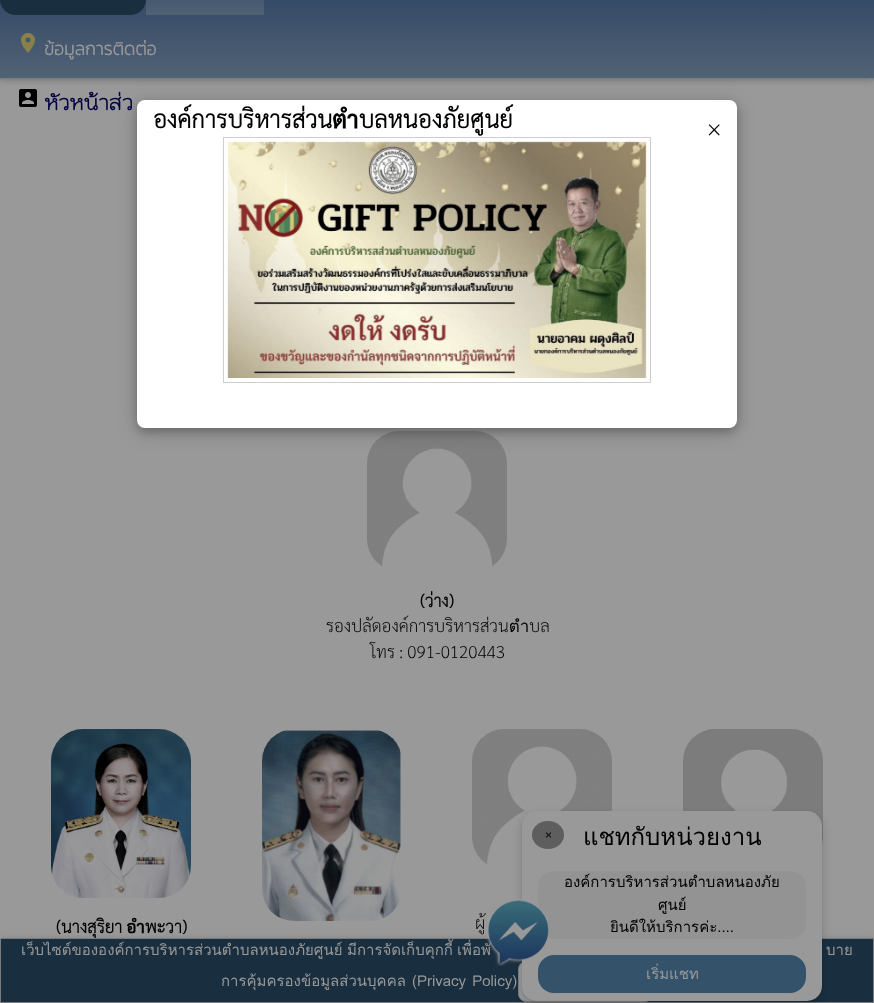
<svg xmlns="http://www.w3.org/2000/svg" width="874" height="1003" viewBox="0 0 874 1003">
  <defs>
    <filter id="blur1" x="-50%" y="-200%" width="200%" height="500%"><feGaussianBlur stdDeviation="5"/></filter>
    <filter id="blur2" x="-50%" y="-200%" width="200%" height="500%"><feGaussianBlur stdDeviation="2.5"/></filter>
    <linearGradient id="g1" gradientUnits="userSpaceOnUse" x1="437" y1="-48" x2="437" y2="78"><stop offset="0" stop-color="#253c61"/><stop offset="1" stop-color="#516274"/></linearGradient>
    <linearGradient id="g2" gradientUnits="userSpaceOnUse" x1="205" y1="-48" x2="205" y2="15"><stop offset="0" stop-color="#253c61"/><stop offset="1" stop-color="#516274"/></linearGradient>
    <filter id="blur3" x="-50%" y="-200%" width="200%" height="500%"><feGaussianBlur stdDeviation="10"/></filter>
  </defs>
  <rect width="100%" height="100%" fill="#7e8c98"/>
  <rect x="0" y="78" width="874" height="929" rx="4" fill="#999999"/>
  <image x="19" y="89" width="18" height="18" href="img2.png"/>
  <rect x="0" y="-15" width="874" height="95" fill="#000000" fill-opacity="0.12" filter="url(#blur1)"/>
  <rect x="0" y="-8" width="874" height="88" fill="#000000" fill-opacity="0.16" filter="url(#blur2)"/>
  <rect x="0" y="0" width="874" height="78" fill="url(#g1)"/>
  <rect x="0" y="-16" width="146" height="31" rx="16" fill="#192e3f"/>
  <rect x="146" y="0" width="118" height="15" fill="url(#g2)"/>
  <image x="21" y="33" width="14" height="20" href="img1.png"/>
  <text x="44" y="55" font-family="Kanit" font-size="18" font-weight="bold" fill="#999999">ข้อมูลการติดต่อ</text>
  <text x="44" y="110" font-family="Kodchasan" font-size="20" font-weight="bold" fill="#010141">หัวหน้าส่ว</text>
  <image x="367" y="431" width="140" height="135" href="img3.png"/>
  <text x="420" y="607" font-family="Sarabun" font-size="17" font-weight="bold" fill="#000000">(ว่าง)</text>
  <text x="326" y="632" font-family="Sarabun" font-size="17" font-weight="200" fill="#000000">รองปลัดองค์การบริหารส่วนตำบล</text>
  <text x="370" y="658" font-family="Sarabun" font-size="17" font-weight="200" fill="#000000">โทร : 091-0120443</text>
  <image x="262" y="730" width="139" height="191" href="img4.png"/>
  <image x="683" y="729" width="140" height="116" href="img5.png"/>
  <image x="51" y="729" width="140" height="169" href="img6.png"/>
  <text x="56" y="933" font-family="Sarabun" font-size="17" font-weight="bold" fill="#000000">(นางสุริยา อำพะวา)</text>
  <image x="472" y="729" width="140" height="135" href="img7.png"/>
  <text x="475" y="929" font-family="Sarabun" font-size="17" font-weight="200" fill="#000000">ผู้</text>
  <rect x="137" y="104" width="600" height="328" rx="8" fill="#000000" fill-opacity="0.19" filter="url(#blur3)"/>
  <rect x="137" y="104" width="600" height="328" rx="8" fill="#000000" fill-opacity="0.2" filter="url(#blur1)"/>
  <rect x="137" y="100" width="600" height="328" rx="8" fill="#ffffff"/>
  <text x="153" y="128" font-family="Sarabun" font-size="24" font-weight="bold" fill="#000000">องค์การบริหารส่วนตำบลหนองภัยศูนย์</text>
  <text x="707" y="136" font-family="Sarabun" font-size="24" font-weight="200" fill="#000000">×</text>
  <rect x="223.5" y="137.5" width="427" height="245" fill="none" stroke="#cecece"/>
  <image x="227" y="141" width="420" height="237" href="img8.png"/>
  <rect x="0" y="940" width="874" height="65" fill="#000000" fill-opacity="0.12" filter="url(#blur1)"/>
  <rect x="0" y="940" width="874" height="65" fill="#000000" fill-opacity="0.16" filter="url(#blur2)"/>
  <rect x="0.5" y="938.5" width="873" height="64" fill="#192e3f" stroke="#7c7c7c"/>
  <rect x="518.5" y="961.5" width="134" height="40" rx="7.5" fill="#999999" stroke="#7c7c7c"/>
  <rect x="522" y="815" width="300" height="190" rx="15" fill="#000000" fill-opacity="0.2" filter="url(#blur1)"/>
  <rect x="522" y="811" width="300" height="190" rx="15" fill="#999999"/>
  <ellipse cx="548" cy="835" rx="16" ry="14" fill="#5e5e5e"/>
  <text x="545" y="839" font-family="Liberation Sans" font-size="12" fill="#000000">×</text>
  <text x="583" y="845" font-family="Loma" font-size="24" fill="#000000">แชทกับหน่วยงาน</text>
  <rect x="538" y="871" width="268" height="68" rx="16" fill="#939393"/>
  <text x="564" y="887" font-family="Loma" font-size="15" fill="#000000">องค์การบริหารส่วนตำบลหนองภัย</text>
  <text x="658" y="910" font-family="Loma" font-size="15" fill="#000000">ศูนย์</text>
  <text x="610" y="932" font-family="Loma" font-size="15" fill="#000000">ยินดีให้บริการค่ะ....</text>
  <rect x="538" y="955" width="268" height="38" rx="16" fill="#34526a"/>
  <text x="21" y="955" font-family="Loma" font-size="15" fill="#999999">เว็บไซต์ขององค์การบริหารส่วนตำบลหนองภัยศูนย์</text>
  <text x="347" y="955" word-spacing="-1" font-family="Loma" font-size="15" fill="#999999">มีการจัดเก็บคุกกี้ เพื่อพั</text>
  <image x="485" y="898" width="64" height="68" href="img9.png"/>
  <text x="646" y="979" font-family="Loma" font-size="15" fill="#999999">เริ่มแชท</text>
  <text x="826" y="955" word-spacing="-1" font-family="Loma" font-size="15" fill="#999999">บาย</text>
  <text x="221" y="986" word-spacing="1" font-family="Loma" font-size="15" fill="#999999">การคุ้มครองข้อมูลส่วนบุคคล (Privacy Policy)</text>
</svg>
